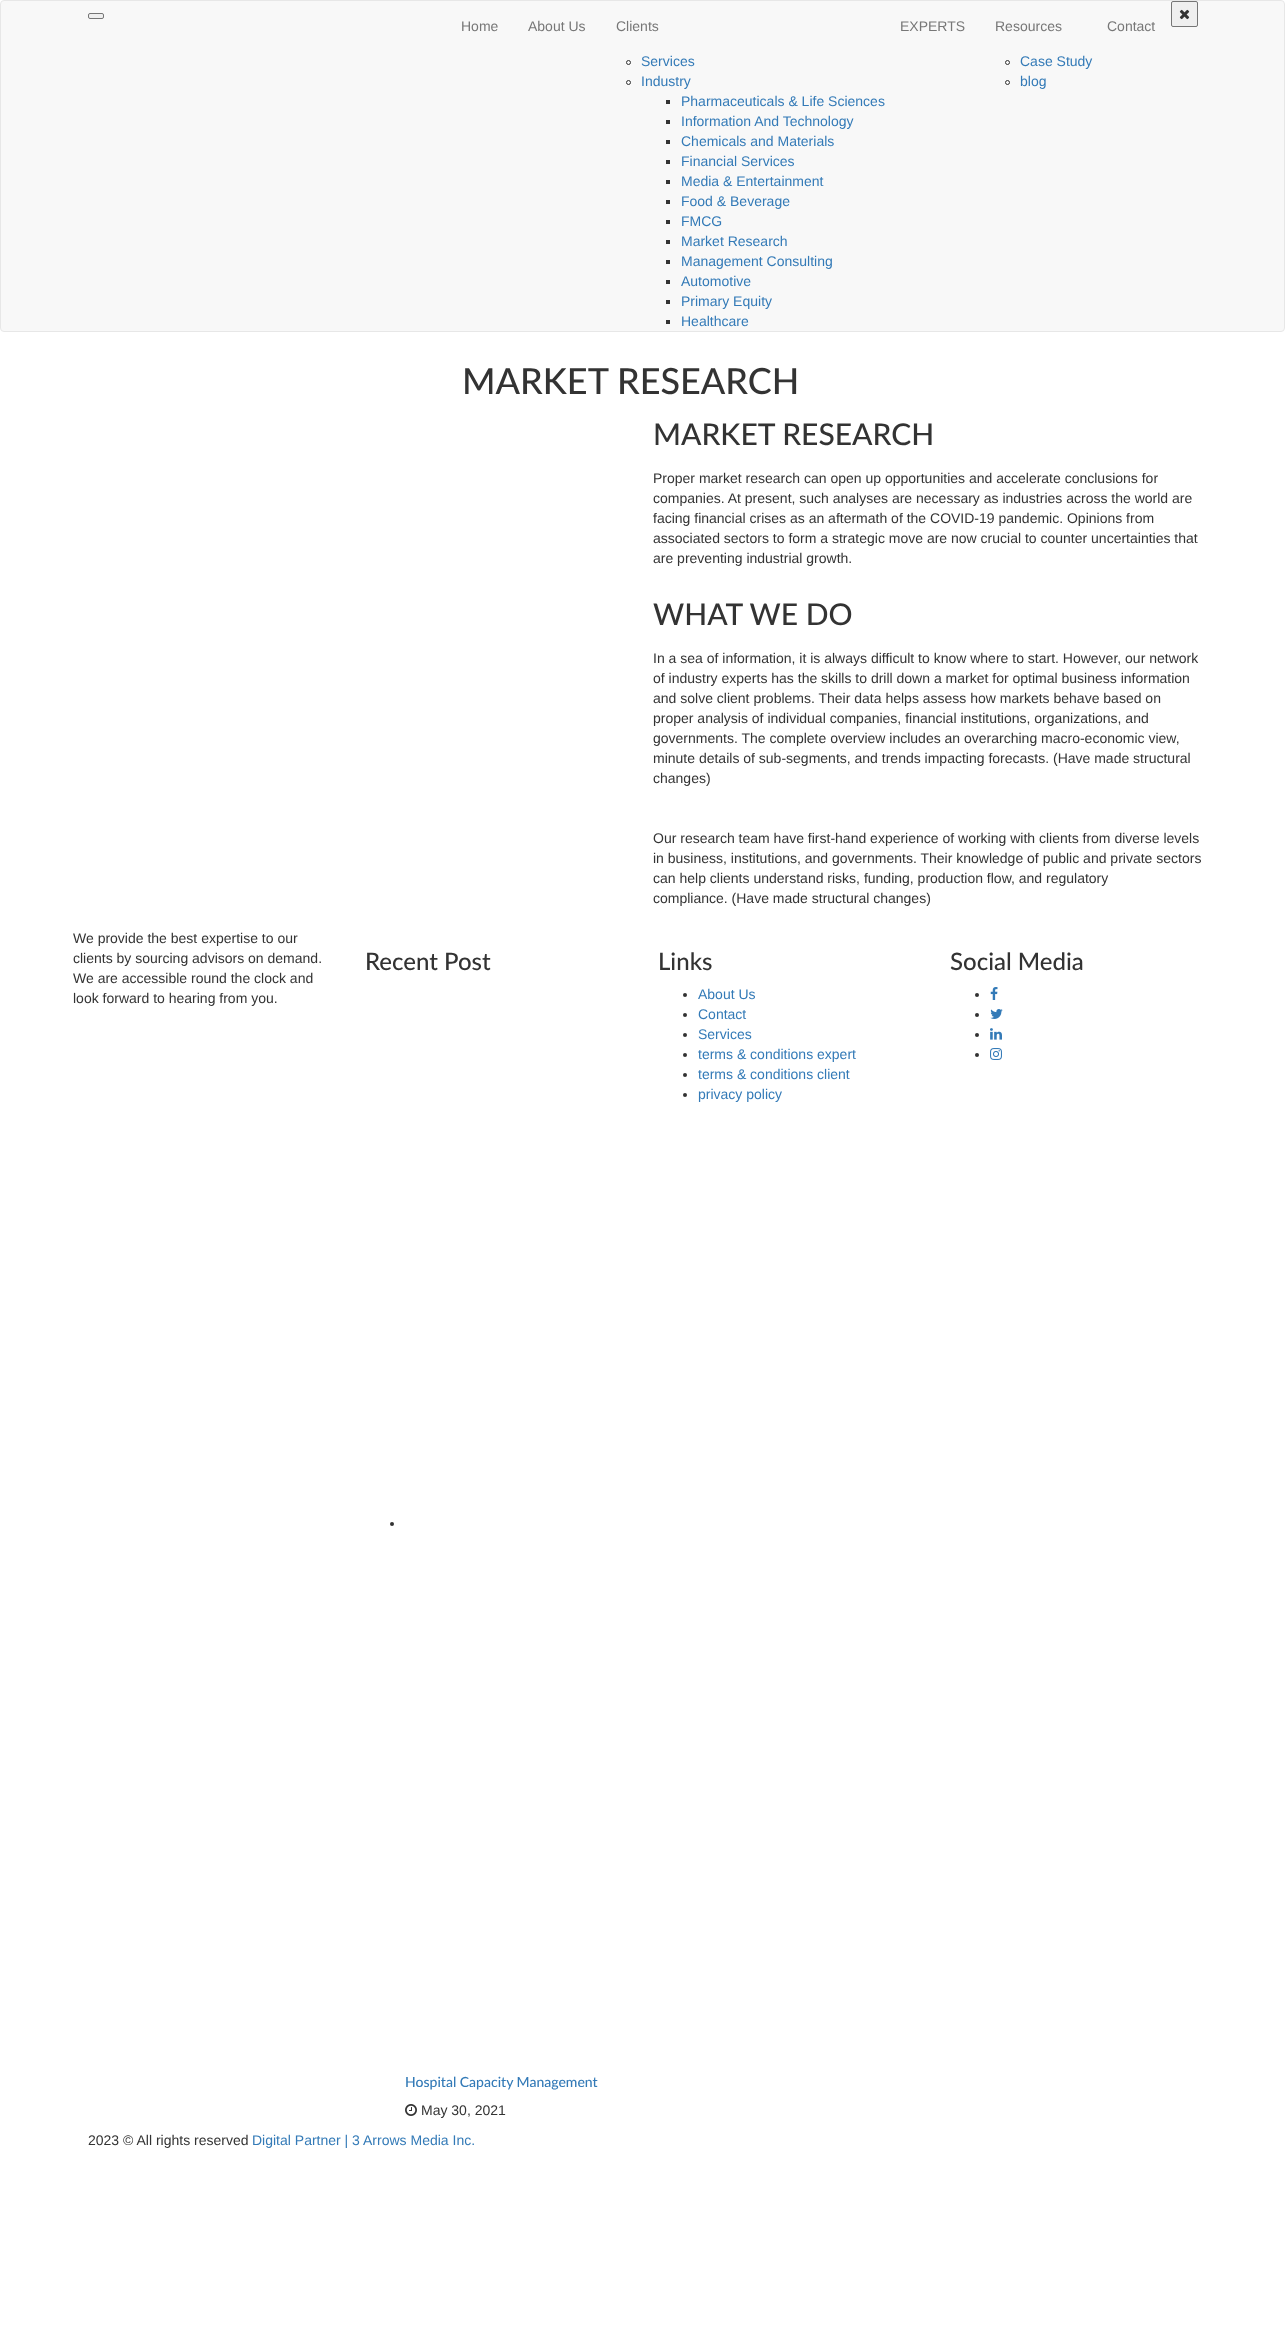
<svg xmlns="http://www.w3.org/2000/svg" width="1285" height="2350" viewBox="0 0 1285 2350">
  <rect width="100%" height="100%" fill="#ffffff"/>
  <rect x="0.5" y="0.5" width="1284" height="331" rx="3.5" fill="#f8f8f8" stroke="#e7e7e7"/>
  <rect x="88.5" y="13.5" width="15" height="5" rx="1.5" fill="#efefef" stroke="#767676"/>
  <rect x="1171.5" y="1.5" width="26" height="25" rx="1.5" fill="#efefef" stroke="#767676"/>
  <image x="1179" y="9" width="11" height="11" href="img1.png"/>
  <text x="461" y="31" font-family="Liberation Sans" font-size="14" fill="#777777">Home</text>
  <text x="528" y="31" font-family="Liberation Sans" font-size="14" fill="#777777">About Us</text>
  <text x="616" y="31" font-family="Liberation Sans" font-size="14" fill="#777777">Clients</text>
  <circle cx="628.5" cy="62.5" r="2" fill="none" stroke="#333333"/>
  <text x="641" y="66" font-family="Liberation Sans" font-size="14" fill="#337ab7">Services</text>
  <circle cx="628.5" cy="82.5" r="2" fill="none" stroke="#333333"/>
  <text x="641" y="86" font-family="Liberation Sans" font-size="14" fill="#337ab7">Industry</text>
  <rect x="666" y="100" width="4" height="4" fill="#333333"/>
  <text x="681" y="106" font-family="Liberation Sans" font-size="14" fill="#337ab7">Pharmaceuticals &amp; Life Sciences</text>
  <rect x="666" y="120" width="4" height="4" fill="#333333"/>
  <text x="681" y="126" font-family="Liberation Sans" font-size="14" fill="#337ab7">Information And Technology</text>
  <rect x="666" y="140" width="4" height="4" fill="#333333"/>
  <text x="681" y="146" font-family="Liberation Sans" font-size="14" fill="#337ab7">Chemicals and Materials</text>
  <rect x="666" y="160" width="4" height="4" fill="#333333"/>
  <text x="681" y="166" font-family="Liberation Sans" font-size="14" fill="#337ab7">Financial Services</text>
  <rect x="666" y="180" width="4" height="4" fill="#333333"/>
  <text x="681" y="186" font-family="Liberation Sans" font-size="14" fill="#337ab7">Media &amp; Entertainment</text>
  <rect x="666" y="200" width="4" height="4" fill="#333333"/>
  <text x="681" y="206" font-family="Liberation Sans" font-size="14" fill="#337ab7">Food &amp; Beverage</text>
  <rect x="666" y="220" width="4" height="4" fill="#333333"/>
  <text x="681" y="226" font-family="Liberation Sans" font-size="14" fill="#337ab7">FMCG</text>
  <rect x="666" y="240" width="4" height="4" fill="#333333"/>
  <text x="681" y="246" font-family="Liberation Sans" font-size="14" fill="#337ab7">Market Research</text>
  <rect x="666" y="260" width="4" height="4" fill="#333333"/>
  <text x="681" y="266" font-family="Liberation Sans" font-size="14" fill="#337ab7">Management Consulting</text>
  <rect x="666" y="280" width="4" height="4" fill="#333333"/>
  <text x="681" y="286" font-family="Liberation Sans" font-size="14" fill="#337ab7">Automotive</text>
  <rect x="666" y="300" width="4" height="4" fill="#333333"/>
  <text x="681" y="306" font-family="Liberation Sans" font-size="14" fill="#337ab7">Primary Equity</text>
  <rect x="666" y="320" width="4" height="4" fill="#333333"/>
  <text x="681" y="326" font-family="Liberation Sans" font-size="14" fill="#337ab7">Healthcare</text>
  <text x="900" y="31" font-family="Liberation Sans" font-size="14" fill="#777777">EXPERTS</text>
  <text x="995" y="31" font-family="Liberation Sans" font-size="14" fill="#777777">Resources</text>
  <circle cx="1007.5" cy="62.5" r="2" fill="none" stroke="#333333"/>
  <text x="1020" y="66" font-family="Liberation Sans" font-size="14" fill="#337ab7">Case Study</text>
  <circle cx="1007.5" cy="82.5" r="2" fill="none" stroke="#333333"/>
  <text x="1020" y="86" font-family="Liberation Sans" font-size="14" fill="#337ab7">blog</text>
  <text x="1107" y="31" font-family="Liberation Sans" font-size="14" fill="#777777">Contact</text>
  <text x="462" y="394" font-family="Lato" font-size="36" font-weight="500" fill="#333333">MARKET RESEARCH</text>
  <text x="653" y="445" font-family="Lato" font-size="30" font-weight="500" fill="#333333">MARKET RESEARCH</text>
  <text x="653" y="483" font-family="Liberation Sans" font-size="14" fill="#333333">Proper market research can open up opportunities and accelerate conclusions for</text>
  <text x="653" y="503" font-family="Liberation Sans" font-size="14" fill="#333333">companies. At present, such analyses are necessary as industries across the world are</text>
  <text x="653" y="523" font-family="Liberation Sans" font-size="14" fill="#333333">facing financial crises as an aftermath of the COVID-19 pandemic. Opinions from</text>
  <text x="653" y="543" font-family="Liberation Sans" font-size="14" fill="#333333">associated sectors to form a strategic move are now crucial to counter uncertainties that</text>
  <text x="653" y="563" font-family="Liberation Sans" font-size="14" fill="#333333">are preventing industrial growth.</text>
  <text x="653" y="625" font-family="Lato" font-size="30" font-weight="500" fill="#333333">WHAT WE DO</text>
  <text x="653" y="663" font-family="Liberation Sans" font-size="14" fill="#333333">In a sea of information, it is always difficult to know where to start. However, our network</text>
  <text x="653" y="683" font-family="Liberation Sans" font-size="14" fill="#333333">of industry experts has the skills to drill down a market for optimal business information</text>
  <text x="653" y="703" font-family="Liberation Sans" font-size="14" fill="#333333">and solve client problems. Their data helps assess how markets behave based on</text>
  <text x="653" y="723" font-family="Liberation Sans" font-size="14" fill="#333333">proper analysis of individual companies, financial institutions, organizations, and</text>
  <text x="653" y="743" font-family="Liberation Sans" font-size="14" fill="#333333">governments. The complete overview includes an overarching macro-economic view,</text>
  <text x="653" y="763" font-family="Liberation Sans" font-size="14" fill="#333333">minute details of sub-segments, and trends impacting forecasts. (Have made structural</text>
  <text x="653" y="783" font-family="Liberation Sans" font-size="14" fill="#333333">changes)</text>
  <text x="653" y="843" font-family="Liberation Sans" font-size="14" fill="#333333">Our research team have first-hand experience of working with clients from diverse levels</text>
  <text x="653" y="863" font-family="Liberation Sans" font-size="14" fill="#333333">in business, institutions, and governments. Their knowledge of public and private sectors</text>
  <text x="653" y="883" font-family="Liberation Sans" font-size="14" fill="#333333">can help clients understand risks, funding, production flow, and regulatory</text>
  <text x="653" y="903" font-family="Liberation Sans" font-size="14" fill="#333333">compliance. (Have made structural changes)</text>
  <text x="73" y="943" font-family="Liberation Sans" font-size="14" fill="#333333">We provide the best expertise to our</text>
  <text x="73" y="963" font-family="Liberation Sans" font-size="14" fill="#333333">clients by sourcing advisors on demand.</text>
  <text x="73" y="983" font-family="Liberation Sans" font-size="14" fill="#333333">We are accessible round the clock and</text>
  <text x="73" y="1003" font-family="Liberation Sans" font-size="14" fill="#333333">look forward to hearing from you.</text>
  <text x="365" y="970" font-family="Lato" font-size="24" font-weight="500" fill="#333333">Recent Post</text>
  <circle cx="392" cy="1524" r="2" fill="#333333"/>
  <text x="405" y="2087" font-family="Lato" font-size="14" font-weight="500" fill="#337ab7">Hospital Capacity Management</text>
  <image x="405" y="2104" width="12" height="12" href="img2.png"/>
  <text x="421" y="2115" font-family="Liberation Sans" font-size="14" fill="#333333">May 30, 2021</text>
  <text x="658" y="970" font-family="Lato" font-size="24" font-weight="500" fill="#333333">Links</text>
  <circle cx="685" cy="995" r="2" fill="#333333"/>
  <text x="698" y="999" font-family="Liberation Sans" font-size="14" fill="#337ab7">About Us</text>
  <circle cx="685" cy="1015" r="2" fill="#333333"/>
  <text x="698" y="1019" font-family="Liberation Sans" font-size="14" fill="#337ab7">Contact</text>
  <circle cx="685" cy="1035" r="2" fill="#333333"/>
  <text x="698" y="1039" font-family="Liberation Sans" font-size="14" fill="#337ab7">Services</text>
  <circle cx="685" cy="1055" r="2" fill="#333333"/>
  <text x="698" y="1059" font-family="Liberation Sans" font-size="14" fill="#337ab7">terms &amp; conditions expert</text>
  <circle cx="685" cy="1075" r="2" fill="#333333"/>
  <text x="698" y="1079" font-family="Liberation Sans" font-size="14" fill="#337ab7">terms &amp; conditions client</text>
  <circle cx="685" cy="1095" r="2" fill="#333333"/>
  <text x="698" y="1099" font-family="Liberation Sans" font-size="14" fill="#337ab7">privacy policy</text>
  <text x="950" y="970" font-family="Lato" font-size="24" font-weight="500" fill="#333333">Social Media</text>
  <circle cx="977" cy="995" r="2" fill="#333333"/>
  <image x="990" y="987" width="8" height="13" href="img3.png"/>
  <circle cx="977" cy="1015" r="2" fill="#333333"/>
  <image x="990" y="1009" width="13" height="10" href="img4.png"/>
  <circle cx="977" cy="1035" r="2" fill="#333333"/>
  <image x="990" y="1028" width="12" height="12" href="img5.png"/>
  <circle cx="977" cy="1055" r="2" fill="#333333"/>
  <image x="990" y="1048" width="12" height="12" href="img6.png"/>
  <text x="88" y="2145" font-family="Liberation Sans" font-size="14" fill="#333333">2023 © All rights reserved</text>
  <text x="252" y="2145" font-family="Liberation Sans" font-size="14" fill="#337ab7">Digital Partner | 3 Arrows Media Inc.</text>
</svg>
